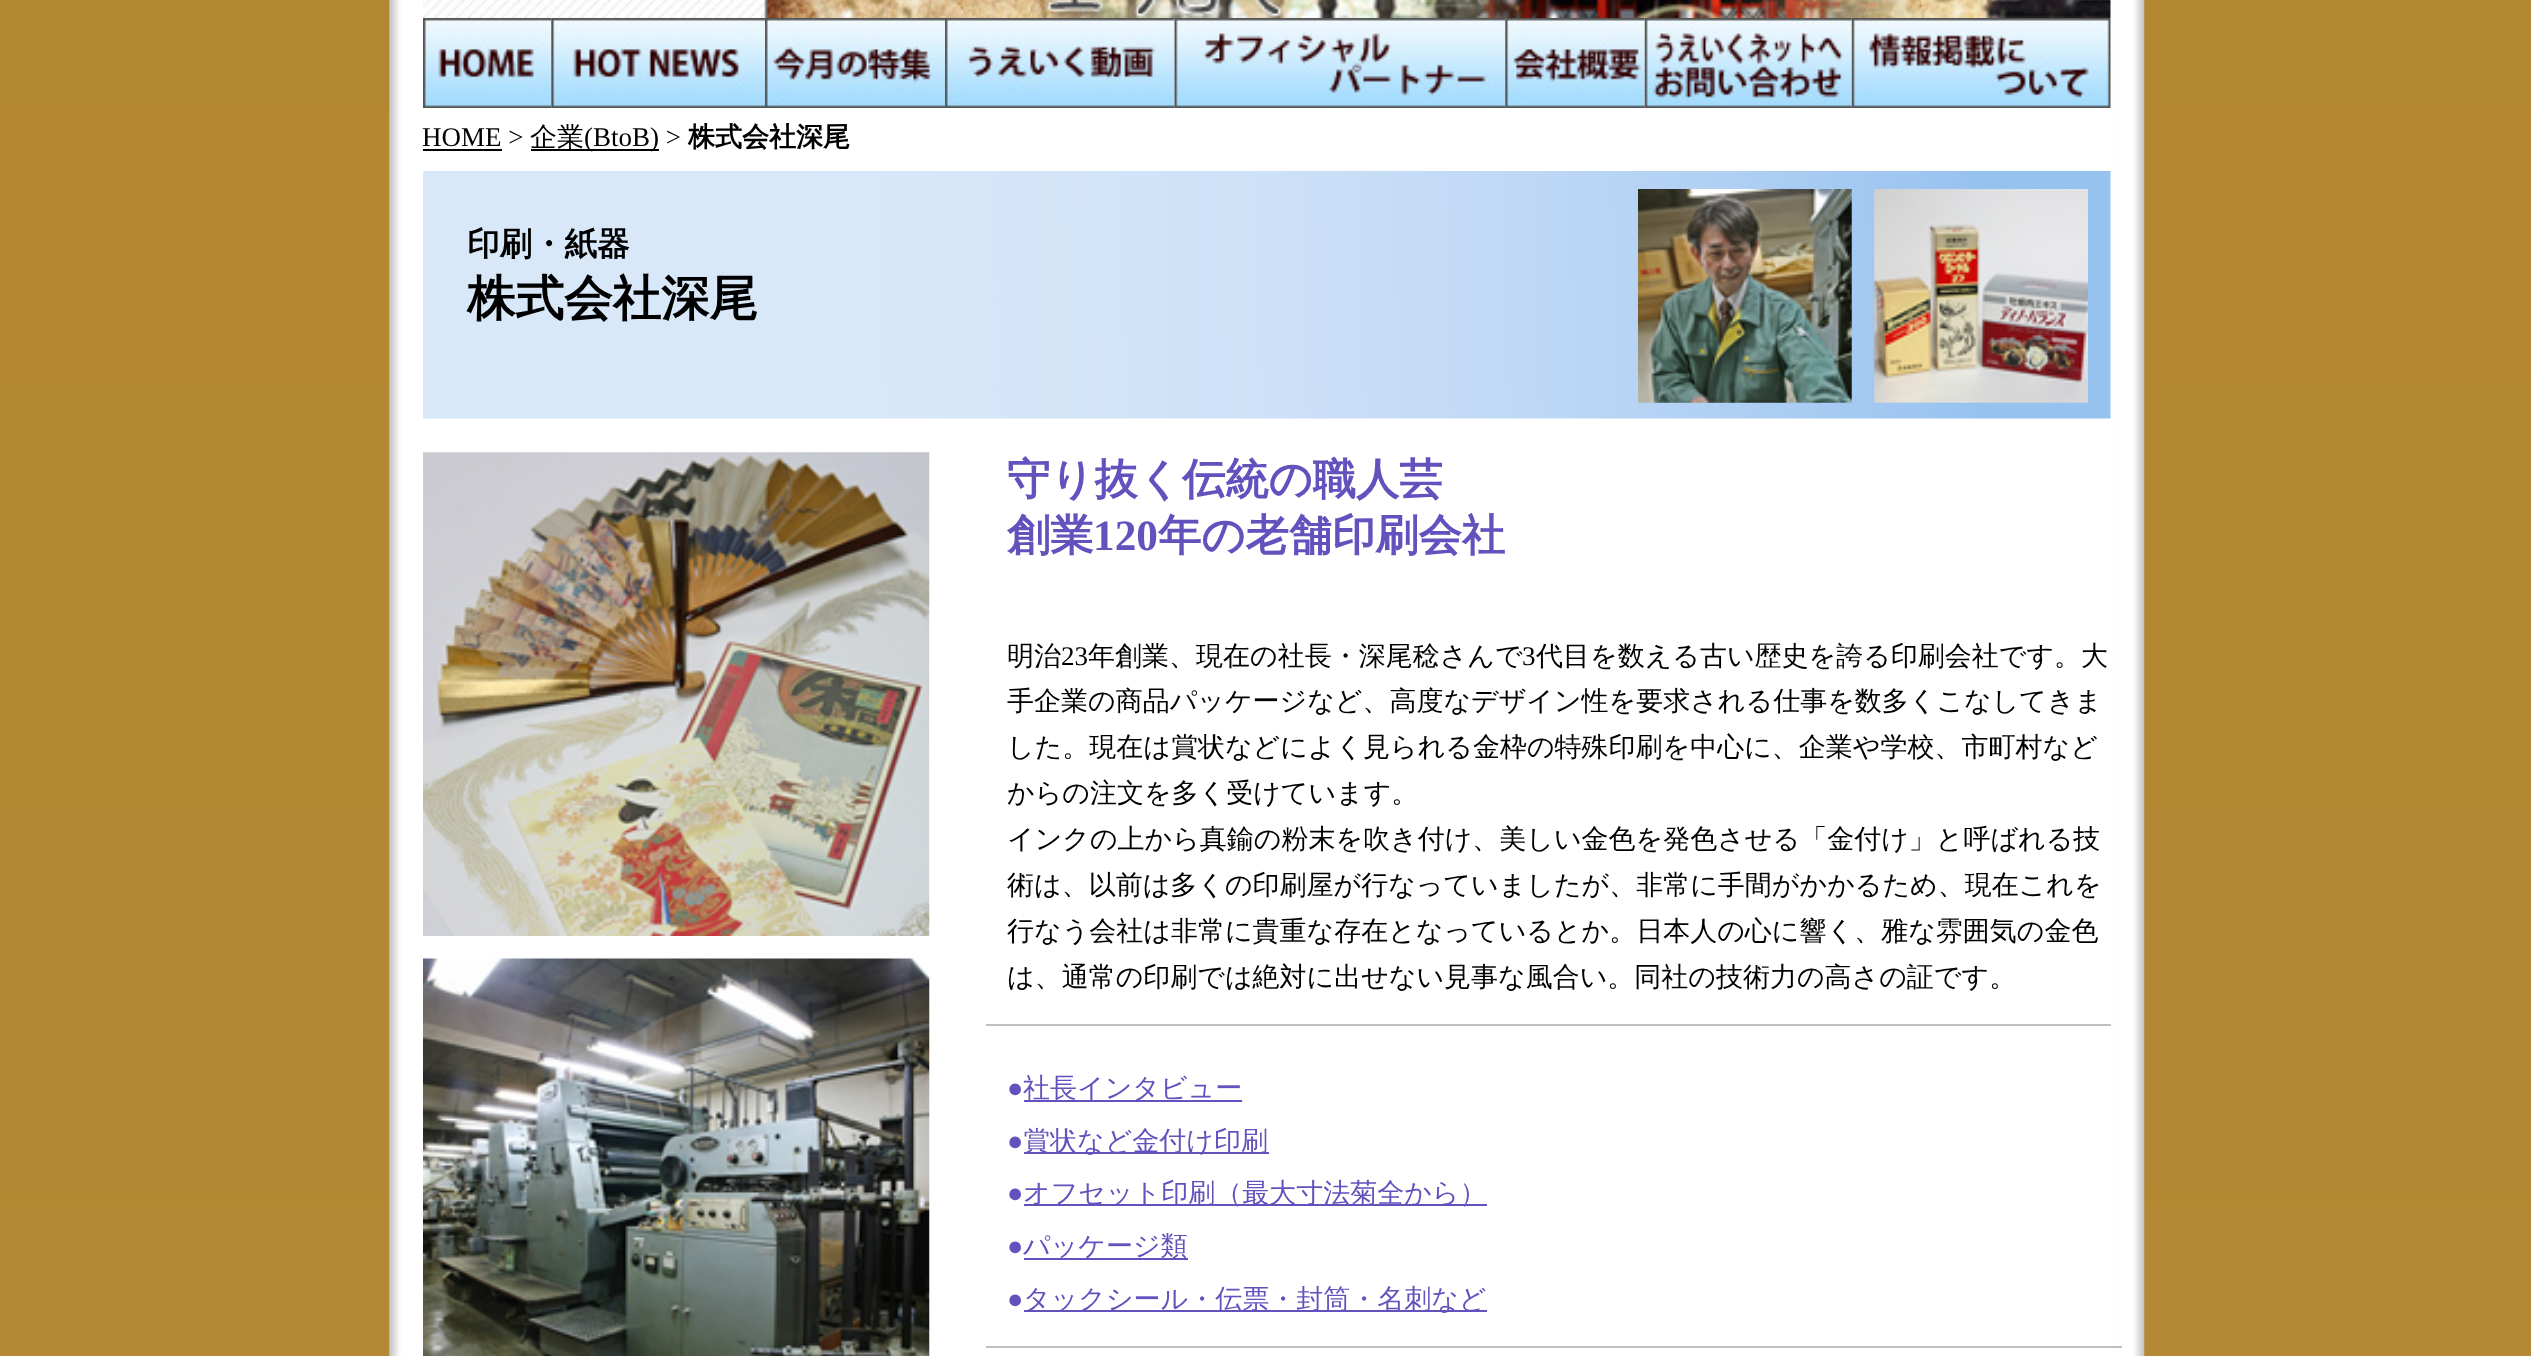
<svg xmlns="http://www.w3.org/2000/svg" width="2531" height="1356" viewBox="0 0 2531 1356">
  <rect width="100%" height="100%" fill="#ffffff"/>
  <image x="0" y="0" width="2531" height="1356" href="img1.png"/>
  <image x="389" y="0" width="1756" height="1356" href="img2.png"/>
  <image x="423" y="0" width="1688" height="18" href="img3.png"/>
  <image x="423" y="18" width="129" height="90" href="img4.png"/>
  <image x="551" y="18" width="214" height="90" href="img5.png"/>
  <image x="765" y="18" width="180" height="90" href="img6.png"/>
  <image x="945" y="18" width="230" height="90" href="img7.png"/>
  <image x="1174" y="18" width="332" height="90" href="img8.png"/>
  <image x="1505" y="18" width="140" height="90" href="img9.png"/>
  <image x="1644" y="18" width="208" height="90" href="img10.png"/>
  <image x="1851" y="18" width="260" height="90" href="img11.png"/>
  <text x="422" y="146" font-family="Liberation Serif" font-size="27" fill="#000000">HOME &gt;</text>
  <rect x="423" y="149" width="79" height="2" fill="#000000"/>
  <rect x="531" y="149" width="128" height="2" fill="#000000"/>
  <text x="530" y="146" font-family="WenQuanYi Zen Hei" font-size="27" font-weight="500" fill="#000000">企業</text>
  <text x="584" y="146" font-family="Liberation Serif" font-size="27" fill="#000000">(BtoB) &gt;</text>
  <text x="688" y="146" font-family="WenQuanYi Zen Hei" font-size="27" font-weight="bold" fill="#000000">株式会社深尾</text>
  <image x="423" y="171" width="1688" height="248" href="img12.png"/>
  <text x="467" y="255" font-family="WenQuanYi Zen Hei" font-size="32.5" font-weight="bold" fill="#000000">印刷・紙器</text>
  <text x="467" y="315" font-family="WenQuanYi Zen Hei" font-size="48.5" font-weight="bold" fill="#000000">株式会社深尾</text>
  <image x="1638" y="189" width="214" height="214" href="img13.png"/>
  <image x="1874" y="189" width="214" height="214" href="img14.png"/>
  <image x="423" y="452" width="507" height="484" href="img15.png"/>
  <image x="423" y="958" width="507" height="398" href="img16.png"/>
  <text x="1007" y="494" font-family="WenQuanYi Zen Hei" font-size="43.25" font-weight="bold" fill="#6451bd">守り抜く伝統の職人芸</text>
  <text x="1007" y="550" font-family="WenQuanYi Zen Hei" font-size="43.25" font-weight="bold" fill="#6451bd">創業</text>
  <text x="1093" y="550" font-family="Liberation Serif" font-size="43.25" font-weight="bold" fill="#6451bd">120</text>
  <text x="1158" y="550" font-family="WenQuanYi Zen Hei" font-size="43.25" font-weight="bold" fill="#6451bd">年の老舗印刷会社</text>
  <rect x="986" y="1024" width="1125" height="2" fill="#bfbfbf"/>
  <text x="1007" y="665" font-family="WenQuanYi Zen Hei" font-size="27" font-weight="500" fill="#000000">明治</text>
  <text x="1061" y="665" font-family="Liberation Serif" font-size="27" fill="#000000">23</text>
  <text x="1088" y="665" font-family="WenQuanYi Zen Hei" font-size="27" font-weight="500" fill="#000000">年創業、現在の社長・深尾稔さんで</text>
  <text x="1522" y="665" font-family="Liberation Serif" font-size="27" fill="#000000">3</text>
  <text x="1536" y="665" font-family="WenQuanYi Zen Hei" font-size="27" font-weight="500" fill="#000000">代目を数える古い歴史を誇る印刷会社です。大</text>
  <text x="1007" y="710" font-family="WenQuanYi Zen Hei" font-size="27" font-weight="500" fill="#000000">手企業の商品パッケージなど、高度なデザイン性を要求される仕事を数多くこなしてきま</text>
  <text x="1007" y="756" font-family="WenQuanYi Zen Hei" font-size="27" font-weight="500" fill="#000000">した。現在は賞状などによく見られる金枠の特殊印刷を中心に、企業や学校、市町村など</text>
  <text x="1007" y="802" font-family="WenQuanYi Zen Hei" font-size="27" font-weight="500" fill="#000000">からの注文を多く受けています。</text>
  <text x="1007" y="848" font-family="WenQuanYi Zen Hei" font-size="27" font-weight="500" fill="#000000">インクの上から真鍮の粉末を吹き付け、美しい金色を発色させる「金付け」と呼ばれる技</text>
  <text x="1007" y="894" font-family="WenQuanYi Zen Hei" font-size="27" font-weight="500" fill="#000000">術は、以前は多くの印刷屋が行なっていましたが、非常に手間がかかるため、現在これを</text>
  <text x="1007" y="940" font-family="WenQuanYi Zen Hei" font-size="27" font-weight="500" fill="#000000">行なう会社は非常に貴重な存在となっているとか。日本人の心に響く、雅な雰囲気の金色</text>
  <text x="1007" y="986" font-family="WenQuanYi Zen Hei" font-size="27" font-weight="500" fill="#000000">は、通常の印刷では絶対に出せない見事な風合い。同社の技術力の高さの証です。</text>
  <rect x="986" y="1346" width="1136" height="2" fill="#bfbfbf"/>
  <text x="1007" y="1097" font-family="Liberation Serif" font-size="27" fill="#6451bd">●</text>
  <rect x="1024" y="1100" width="218" height="2" fill="#6451bd"/>
  <text x="1023" y="1097" font-family="WenQuanYi Zen Hei" font-size="27" font-weight="500" fill="#6451bd">社長インタビュー</text>
  <text x="1007" y="1150" font-family="Liberation Serif" font-size="27" fill="#6451bd">●</text>
  <rect x="1024" y="1152" width="245" height="2" fill="#6451bd"/>
  <text x="1023" y="1150" font-family="WenQuanYi Zen Hei" font-size="27" font-weight="500" fill="#6451bd">賞状など金付け印刷</text>
  <text x="1007" y="1202" font-family="Liberation Serif" font-size="27" fill="#6451bd">●</text>
  <rect x="1024" y="1204" width="463" height="2" fill="#6451bd"/>
  <text x="1023" y="1202" font-family="WenQuanYi Zen Hei" font-size="27" font-weight="500" fill="#6451bd">オフセット印刷（最大寸法菊全から）</text>
  <text x="1007" y="1255" font-family="Liberation Serif" font-size="27" fill="#6451bd">●</text>
  <rect x="1024" y="1258" width="164" height="2" fill="#6451bd"/>
  <text x="1023" y="1255" font-family="WenQuanYi Zen Hei" font-size="27" font-weight="500" fill="#6451bd">パッケージ類</text>
  <text x="1007" y="1308" font-family="Liberation Serif" font-size="27" fill="#6451bd">●</text>
  <rect x="1024" y="1310" width="463" height="2" fill="#6451bd"/>
  <text x="1023" y="1308" font-family="WenQuanYi Zen Hei" font-size="27" font-weight="500" fill="#6451bd">タックシール・伝票・封筒・名刺など</text>
</svg>
